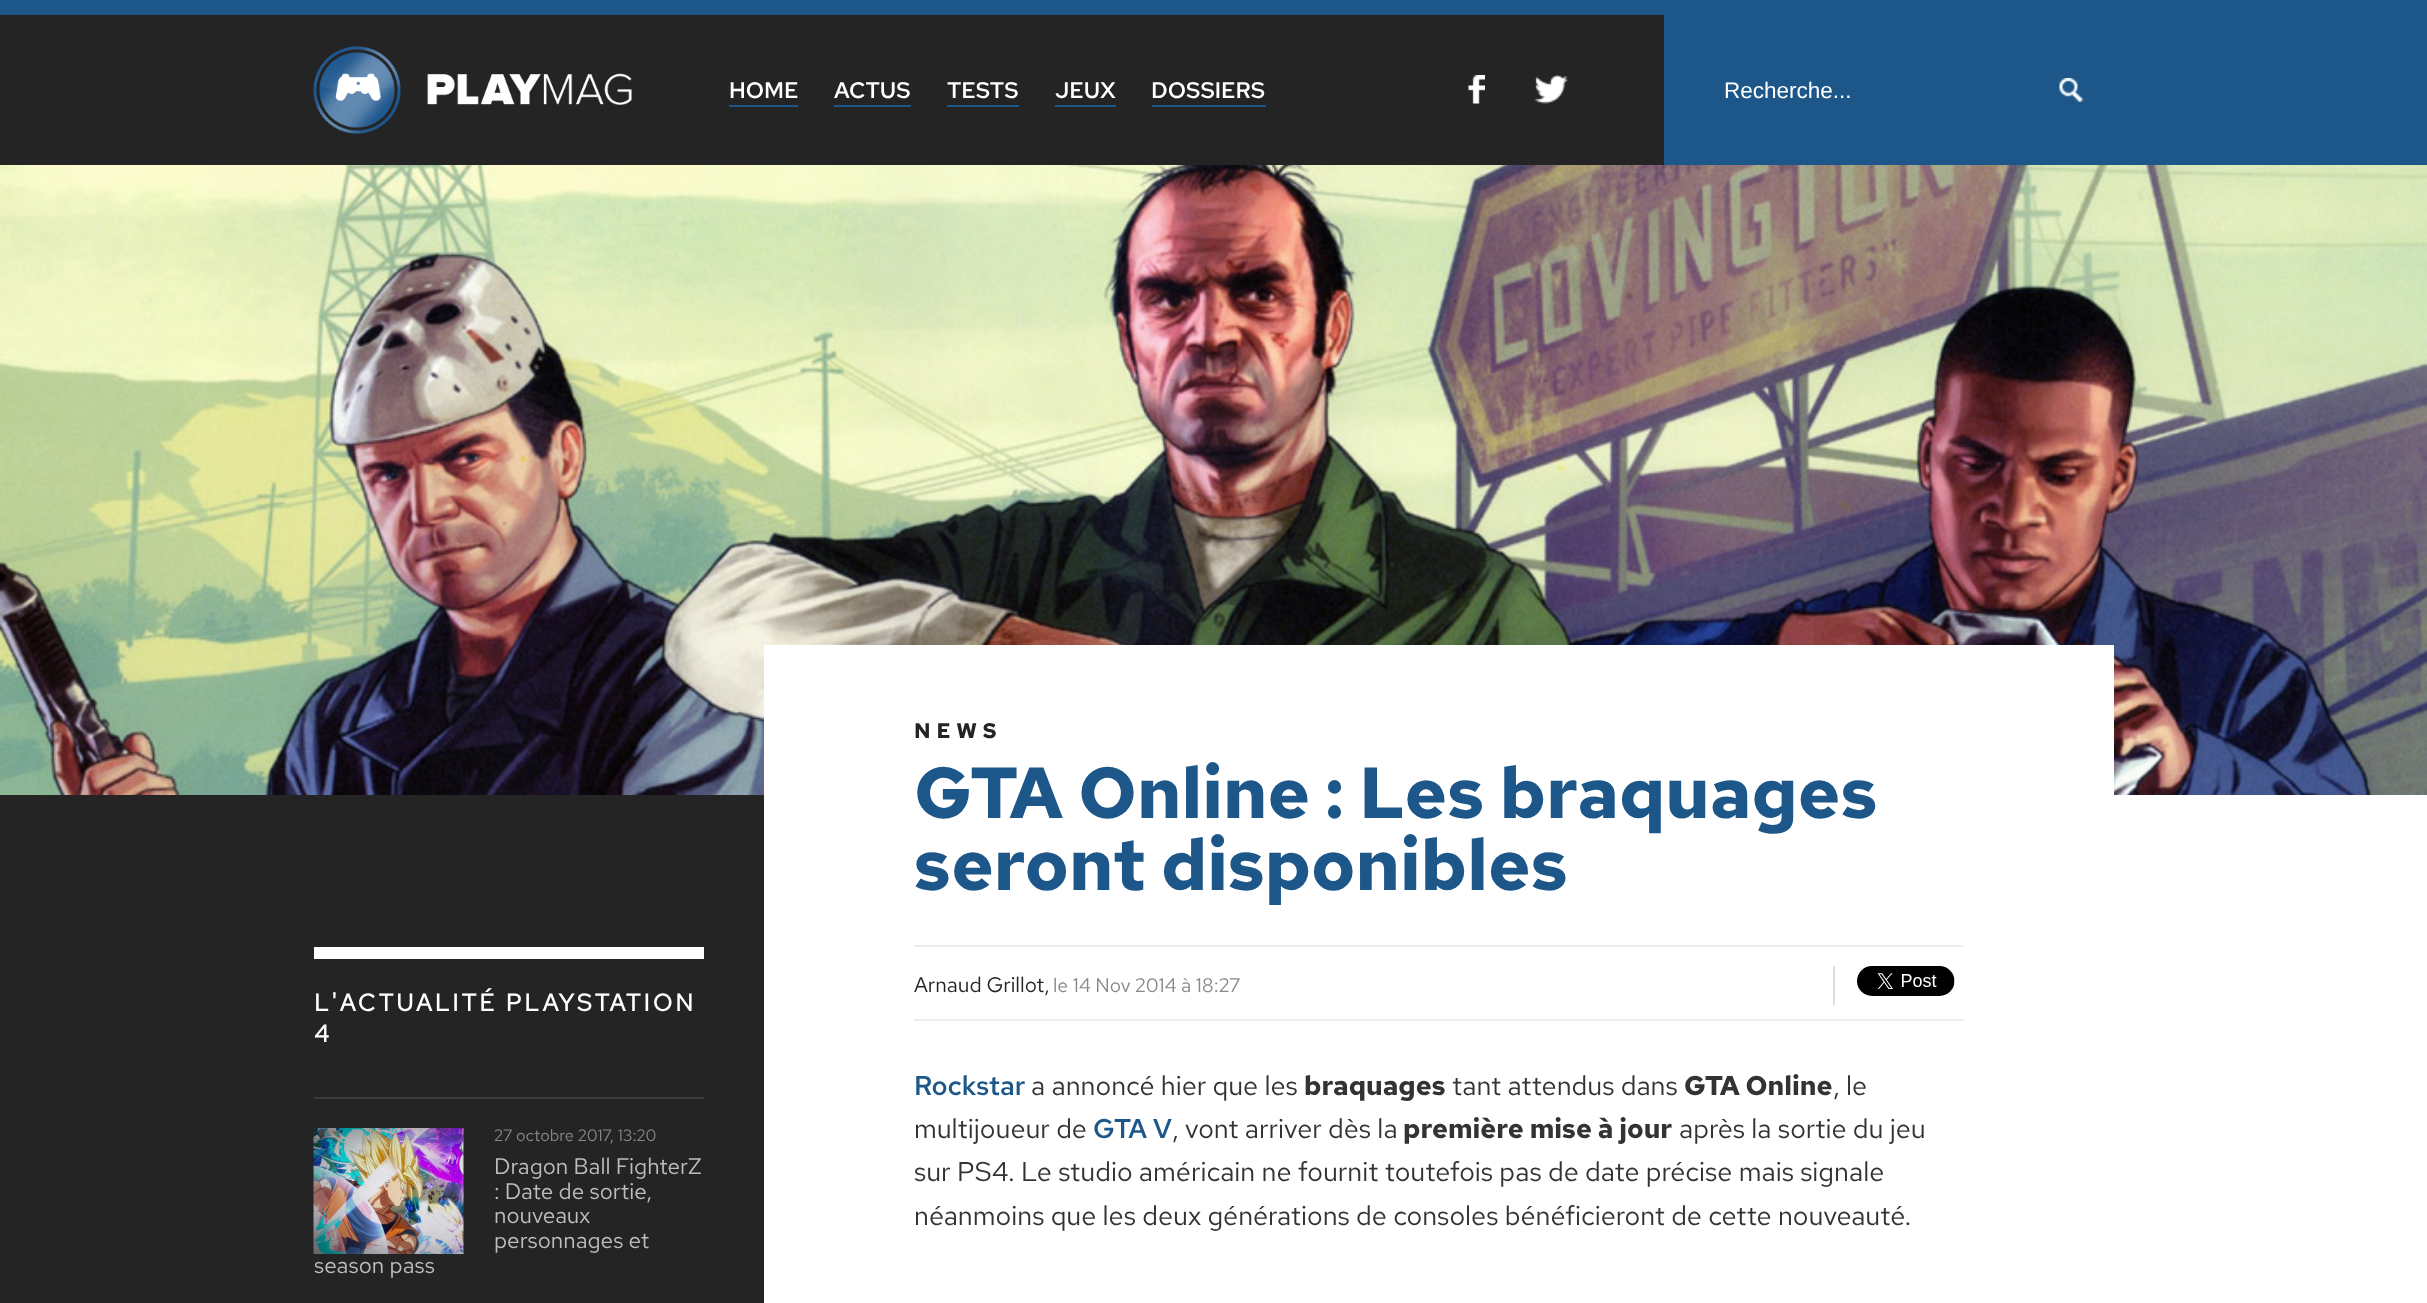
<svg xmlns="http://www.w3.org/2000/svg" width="2427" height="1303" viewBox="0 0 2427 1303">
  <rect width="100%" height="100%" fill="#ffffff"/>
  <rect x="0" y="795" width="764" height="508" fill="#242424"/>
  <rect x="0" y="0" width="2427" height="15" fill="#1d578a"/>
  <rect x="0" y="15" width="1664" height="150" fill="#242424"/>
  <rect x="1664" y="15" width="763" height="150" fill="#1d578a"/>
  <image x="313" y="46" width="319" height="88" href="img1.png"/>
  <text x="729" y="98" font-family="Red Hat Text" font-size="22.5" font-weight="600" fill="#ffffff">HOME</text>
  <rect x="729" y="105" width="69" height="2" fill="#1d578a"/>
  <text x="834" y="98" font-family="Red Hat Text" font-size="22.5" font-weight="600" fill="#ffffff">ACTUS</text>
  <rect x="834" y="105" width="77" height="2" fill="#1d578a"/>
  <text x="947" y="98" font-family="Red Hat Text" font-size="22.5" font-weight="600" fill="#ffffff">TESTS</text>
  <rect x="947" y="105" width="72" height="2" fill="#1d578a"/>
  <text x="1055" y="98" font-family="Red Hat Text" font-size="22.5" font-weight="600" fill="#ffffff">JEUX</text>
  <rect x="1055" y="105" width="61" height="2" fill="#1d578a"/>
  <text x="1151" y="98" font-family="Red Hat Text" font-size="22.5" font-weight="600" fill="#ffffff">DOSSIERS</text>
  <rect x="1152" y="105" width="114" height="2" fill="#1d578a"/>
  <image x="1468" y="75" width="17" height="29" href="img2.png"/>
  <image x="1534" y="75" width="34" height="29" href="img3.png"/>
  <text x="1724" y="98" font-family="Liberation Sans" font-size="22.5" fill="#ffffff">Recherche...</text>
  <image x="2058" y="78" width="26" height="24" href="img4.png"/>
  <image x="0" y="165" width="2427" height="630" href="img5.png"/>
  <rect x="314" y="947" width="390" height="12" fill="#ffffff"/>
  <text x="314" y="1011" font-family="'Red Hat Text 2'" font-size="24" font-weight="bold" letter-spacing="3" fill="#ffffff">L'ACTUALITÉ PLAYSTATION</text>
  <text x="314" y="1042" font-family="'Red Hat Text 2'" font-size="24" font-weight="bold" letter-spacing="3" fill="#ffffff">4</text>
  <rect x="314" y="1097" width="390" height="2" fill="#3a3a3a"/>
  <image x="313" y="1128" width="151" height="126" href="img6.png"/>
  <text x="494" y="1141" font-family="Red Hat Text" font-size="16.5" fill="#888888">27 octobre 2017, 13:20</text>
  <text x="494" y="1174" font-family="Red Hat Text" font-size="22.5" fill="#bdbdbd">Dragon Ball FighterZ</text>
  <text x="494" y="1199" font-family="Red Hat Text" font-size="22.5" fill="#bdbdbd">: Date de sortie,</text>
  <text x="494" y="1223" font-family="Red Hat Text" font-size="22.5" fill="#bdbdbd">nouveaux</text>
  <text x="494" y="1248" font-family="Red Hat Text" font-size="22.5" fill="#bdbdbd">personnages et</text>
  <text x="314" y="1273" font-family="Red Hat Text" font-size="22.5" fill="#bdbdbd">season pass</text>
  <rect x="764" y="645" width="1350" height="150" fill="#ffffff"/>
  <text x="914" y="738" font-family="Red Hat Text" font-size="21" font-weight="bold" letter-spacing="6" fill="#242424">NEWS</text>
  <text x="914" y="818" font-family="Red Hat Text" font-size="72" font-weight="bold" fill="#1d578a">GTA Online : Les braquages</text>
  <text x="914" y="890" font-family="Red Hat Text" font-size="72" font-weight="bold" fill="#1d578a">seront disponibles</text>
  <rect x="914" y="945" width="1050" height="2" fill="#eeeeee"/>
  <rect x="914" y="1019" width="1050" height="2" fill="#eeeeee"/>
  <text x="914" y="992" font-family="Red Hat Text" font-size="21" fill="#242424">Arnaud Grillot,</text>
  <text x="1053" y="992" font-family="Red Hat Text" font-size="19.5" fill="#888888">le 14 Nov 2014 à 18:27</text>
  <rect x="1833" y="966" width="2" height="39" fill="#dedede"/>
  <image x="1857" y="966" width="98" height="30" href="img7.png"/>
  <text x="914" y="1095" font-family="Red Hat Text" font-size="27" font-weight="600" fill="#1d578a">Rockstar</text>
  <text x="1031" y="1095" font-family="Red Hat Text" font-size="27" fill="#333333">a annoncé hier que les</text>
  <text x="1304" y="1095" font-family="Red Hat Text" font-size="27" font-weight="bold" fill="#333333">braquages</text>
  <text x="1452" y="1095" font-family="Red Hat Text" font-size="27" fill="#333333">tant attendus dans</text>
  <text x="1684" y="1095" font-family="Red Hat Text" font-size="27" font-weight="bold" fill="#333333">GTA Online</text>
  <text x="1833" y="1095" font-family="Red Hat Text" font-size="27" fill="#333333">, le</text>
  <text x="914" y="1138" font-family="Red Hat Text" font-size="27" fill="#333333">multijoueur de</text>
  <text x="1093" y="1138" font-family="Red Hat Text" font-size="27" font-weight="600" fill="#1d578a">GTA V</text>
  <text x="1172" y="1138" font-family="Red Hat Text" font-size="27" fill="#333333">, vont arriver dès la</text>
  <text x="1403" y="1138" font-family="Red Hat Text" font-size="27" font-weight="bold" fill="#333333">première mise à jour</text>
  <text x="1679" y="1138" font-family="Red Hat Text" font-size="27" fill="#333333">après la sortie du jeu</text>
  <text x="914" y="1181" font-family="Red Hat Text" font-size="27" fill="#333333">sur PS4. Le studio américain ne fournit toutefois pas de date précise mais signale</text>
  <text x="914" y="1225" font-family="Red Hat Text" font-size="27" fill="#333333">néanmoins que les deux générations de consoles bénéficieront de cette nouveauté.</text>
</svg>
